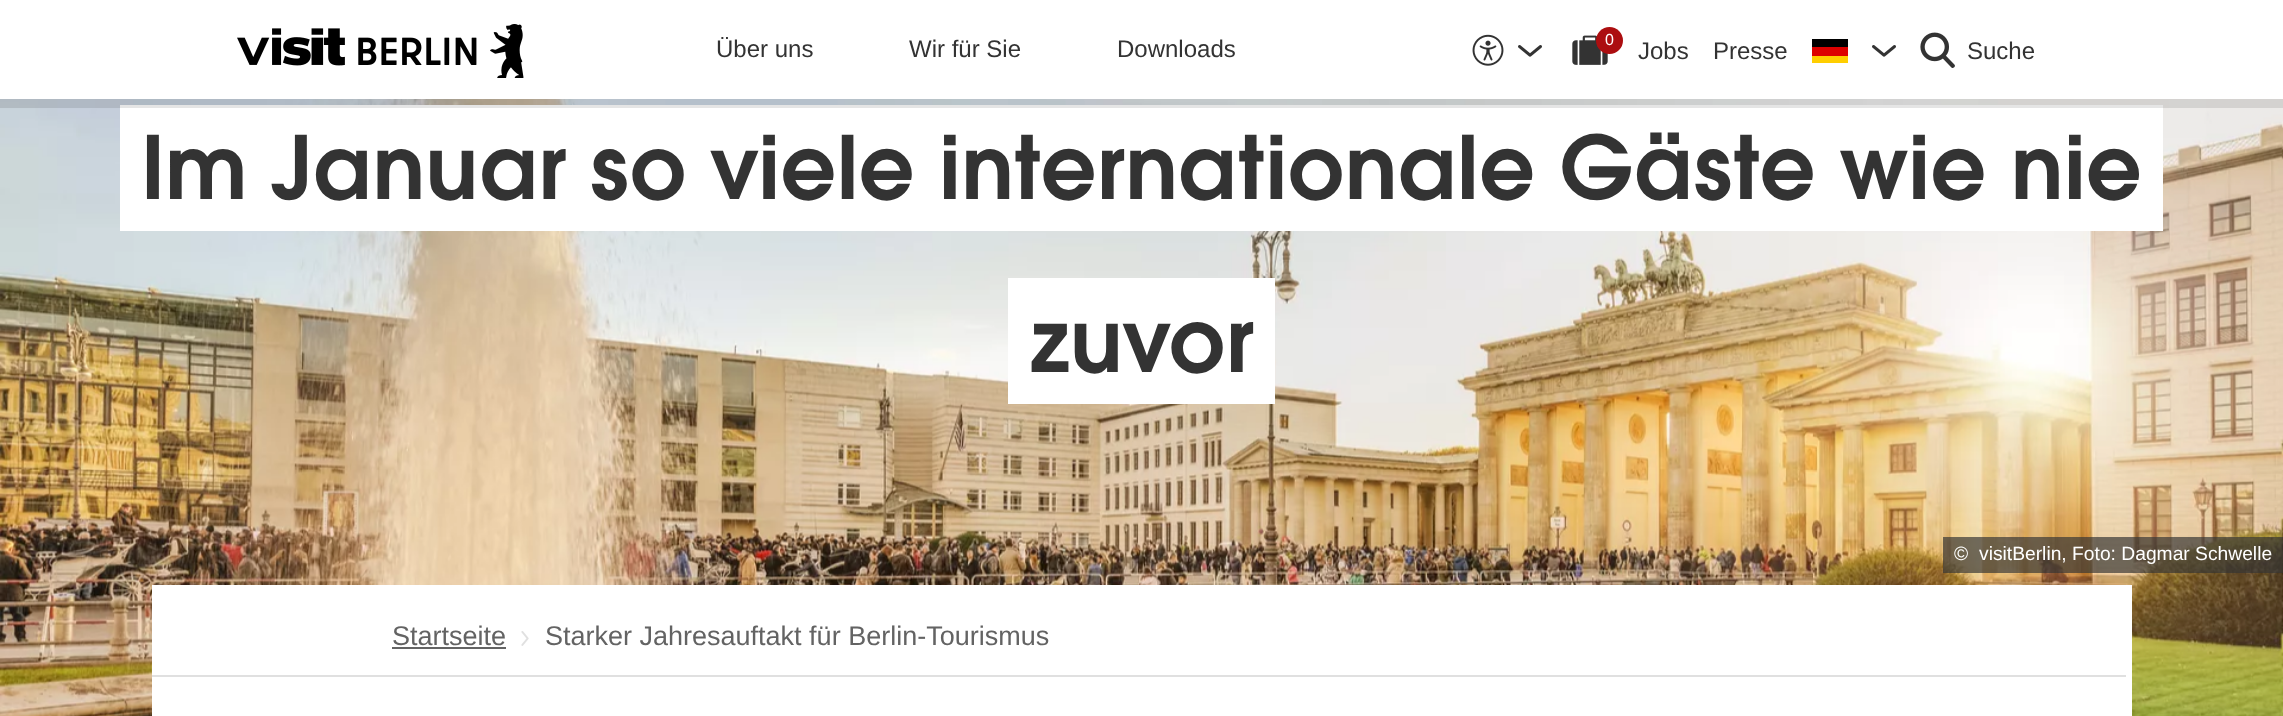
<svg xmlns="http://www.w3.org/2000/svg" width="2283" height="716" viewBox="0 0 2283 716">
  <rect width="100%" height="100%" fill="#ffffff"/>
  <image x="0" y="99" width="2283" height="617" href="img6.png"/>
  <rect x="120" y="105" width="21" height="126" fill="#ffffff"/>
  <rect x="141" y="105" width="2022" height="126" fill="#ffffff"/>
  <rect x="-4" y="-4" width="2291" height="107" fill="none" stroke="#000000" stroke-opacity="0.1" stroke-width="10"/>
  <rect x="0" y="0" width="2283" height="99" fill="#ffffff"/>
  <image x="237" y="24" width="287" height="54" href="img1.png"/>
  <text x="716" y="57" font-family="Liberation Sans" font-size="24" fill="#333333">Über uns</text>
  <text x="909" y="57" font-family="Liberation Sans" font-size="24" fill="#333333">Wir für Sie</text>
  <text x="1117" y="57" font-family="Liberation Sans" font-size="24" fill="#333333">Downloads</text>
  <image x="1472" y="34" width="32" height="32" href="img2.png"/>
  <image x="1518" y="45" width="24" height="12" href="img3.png"/>
  <image x="1572" y="35" width="36" height="30" href="img4.png"/>
  <circle cx="1609.5" cy="40.5" r="13.5" fill="#ac0e10"/>
  <text x="1605" y="45" font-family="Liberation Sans" font-size="16" fill="#ffffff">0</text>
  <text x="1638" y="59" font-family="Liberation Sans" font-size="24" fill="#333333">Jobs</text>
  <text x="1713" y="59" font-family="Liberation Sans" font-size="24" fill="#333333">Presse</text>
  <rect x="1812" y="56" width="36" height="7" fill="#ffce00"/>
  <rect x="1812" y="39" width="36" height="8" fill="#000000"/>
  <rect x="1812" y="47" width="36" height="9" fill="#dd0000"/>
  <image x="1872" y="45" width="24" height="12" href="img3.png"/>
  <image x="1920" y="32" width="35" height="36" href="img5.png"/>
  <text x="1967" y="59" font-family="Liberation Sans" font-size="24" fill="#333333">Suche</text>
  <text x="141" y="199" font-family="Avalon" font-size="96" font-weight="600" fill="#333333">Im Januar so viele internationale Gäste wie nie</text>
  <rect x="1029" y="278" width="225" height="126" fill="#ffffff"/>
  <text x="1030" y="372" font-family="Avalon" font-size="96" font-weight="600" fill="#333333">zuvor</text>
  <path d="M1008 278V404H1233H1029V278Z" fill="#ffffff"/>
  <path d="M1050 404H1275V278H1254V404Z" fill="#ffffff"/>
  <rect x="1943" y="537" width="340" height="36" fill="#333333" fill-opacity="0.68"/>
  <text x="1954" y="560" font-family="Liberation Sans" font-size="19.25" fill="#ffffff">©</text>
  <text x="1979" y="560" font-family="Liberation Sans" font-size="19.25" fill="#ffffff">visitBerlin, Foto: Dagmar Schwelle</text>
  <rect x="152" y="585" width="1980" height="131" fill="#ffffff"/>
  <text x="392" y="645" font-family="Liberation Sans" font-size="27" fill="#636363">Startseite</text>
  <rect x="392" y="647" width="114" height="2" fill="#636363"/>
  <image x="521" y="631" width="8" height="15" href="img7.png"/>
  <text x="545" y="645" font-family="Liberation Sans" font-size="27" fill="#636363">Starker Jahresauftakt für Berlin-Tourismus</text>
  <rect x="152" y="675" width="1974" height="2" fill="#e0e0e0"/>
</svg>
